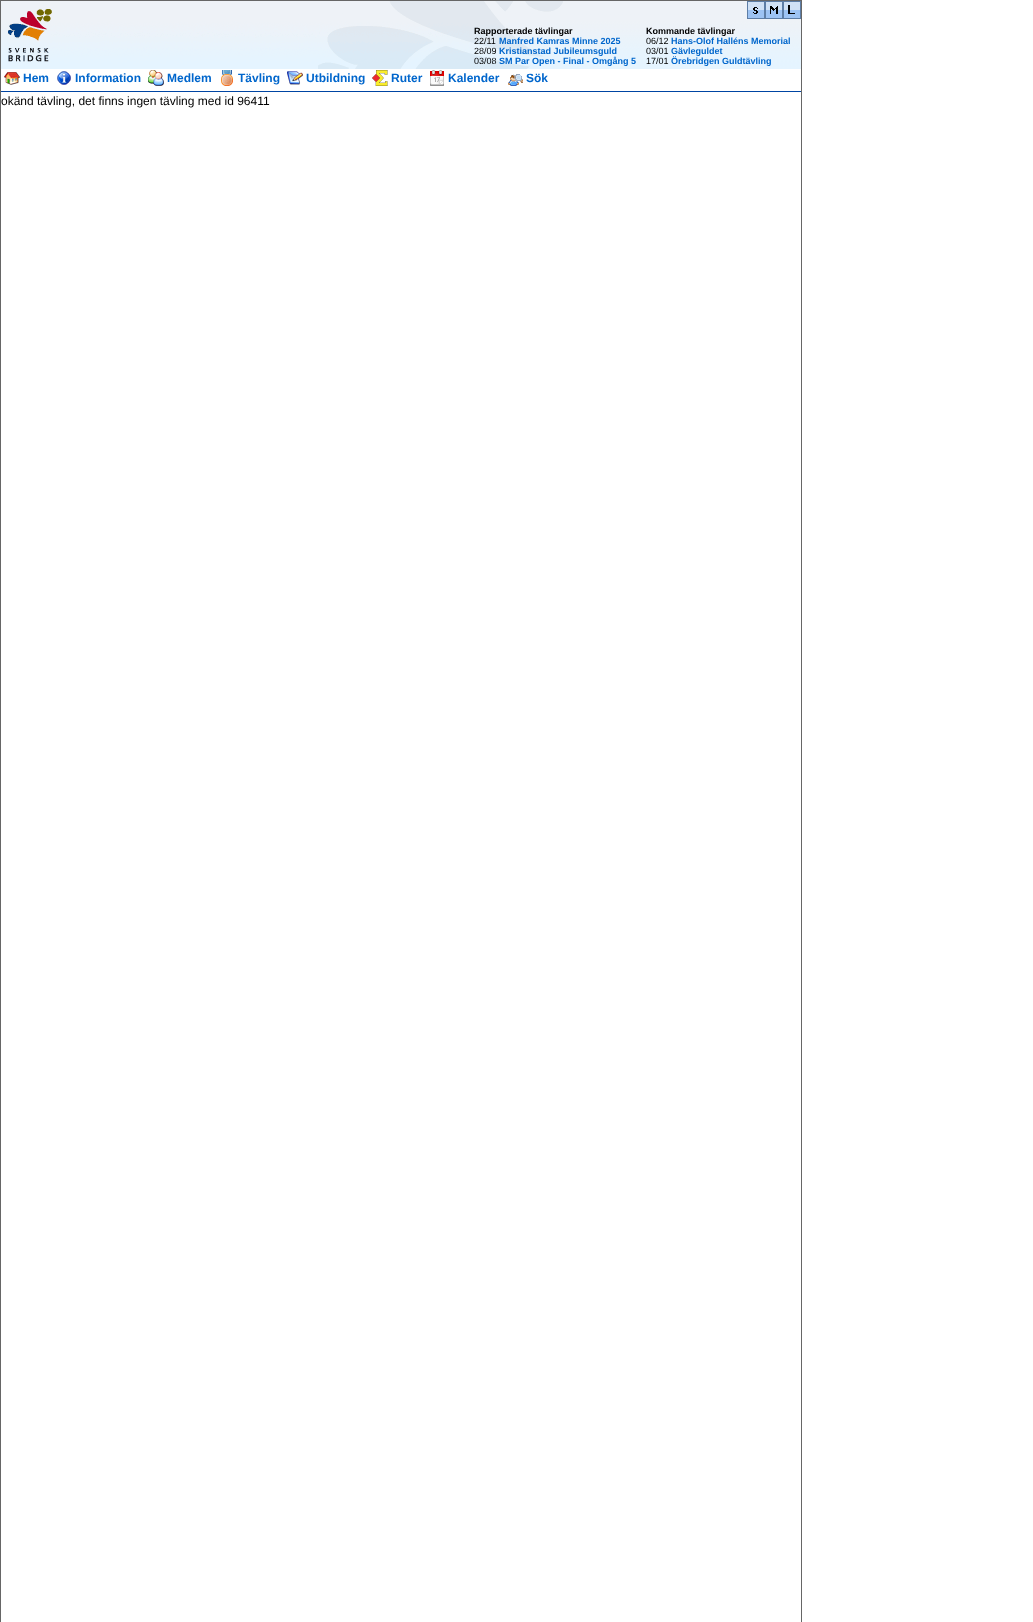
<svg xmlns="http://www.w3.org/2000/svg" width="1033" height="1622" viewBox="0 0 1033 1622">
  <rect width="100%" height="100%" fill="#ffffff"/>
  <image x="1" y="1" width="800" height="68" href="img1.png"/>
  <rect x="0" y="0" width="802" height="1" fill="#666666"/>
  <rect x="801" y="0" width="1" height="1622" fill="#666666"/>
  <rect x="0" y="0" width="1" height="1622" fill="#666666"/>
  <image x="7" y="1" width="556" height="68" href="img2.png"/>
  <image x="747" y="1" width="18" height="18" href="img3.png"/>
  <image x="765" y="1" width="18" height="18" href="img4.png"/>
  <image x="783" y="1" width="18" height="18" href="img5.png"/>
  <text x="474" y="34" font-family="Liberation Sans" font-size="9" font-weight="bold" fill="#000000">Rapporterade tävlingar</text>
  <text x="474" y="44" font-family="Liberation Sans" font-size="9" fill="#000000">22/11</text>
  <text x="499" y="44" font-family="Liberation Sans" font-size="9" font-weight="bold" fill="#0066cc">Manfred Kamras Minne 2025</text>
  <text x="474" y="54" font-family="Liberation Sans" font-size="9" fill="#000000">28/09</text>
  <text x="499" y="54" font-family="Liberation Sans" font-size="9" font-weight="bold" fill="#0066cc">Kristianstad Jubileumsguld</text>
  <text x="474" y="64" font-family="Liberation Sans" font-size="9" fill="#000000">03/08</text>
  <text x="499" y="64" font-family="Liberation Sans" font-size="9" font-weight="bold" fill="#0066cc">SM Par Open - Final - Omgång 5</text>
  <text x="646" y="34" font-family="Liberation Sans" font-size="9" font-weight="bold" fill="#000000">Kommande tävlingar</text>
  <text x="646" y="44" font-family="Liberation Sans" font-size="9" fill="#000000">06/12</text>
  <text x="671" y="44" font-family="Liberation Sans" font-size="9" font-weight="bold" fill="#0066cc">Hans-Olof Halléns Memorial</text>
  <text x="646" y="54" font-family="Liberation Sans" font-size="9" fill="#000000">03/01</text>
  <text x="671" y="54" font-family="Liberation Sans" font-size="9" font-weight="bold" fill="#0066cc">Gävleguldet</text>
  <text x="646" y="64" font-family="Liberation Sans" font-size="9" fill="#000000">17/01</text>
  <text x="671" y="64" font-family="Liberation Sans" font-size="9" font-weight="bold" fill="#0066cc">Örebridgen Guldtävling</text>
  <rect x="1" y="91" width="800" height="1" fill="#0045a3"/>
  <image x="4" y="72" width="16" height="13" href="img6.png"/>
  <text x="23" y="82" font-family="Liberation Sans" font-size="12" font-weight="bold" fill="#0066cc">Hem</text>
  <image x="57" y="71" width="14" height="14" href="img7.png"/>
  <text x="75" y="82" font-family="Liberation Sans" font-size="12" font-weight="bold" fill="#0066cc">Information</text>
  <image x="148" y="70" width="16" height="16" href="img8.png"/>
  <text x="167" y="82" font-family="Liberation Sans" font-size="12" font-weight="bold" fill="#0066cc">Medlem</text>
  <image x="221" y="70" width="12" height="16" href="img9.png"/>
  <text x="238" y="82" font-family="Liberation Sans" font-size="12" font-weight="bold" fill="#0066cc">Tävling</text>
  <image x="287" y="71" width="16" height="14" href="img10.png"/>
  <text x="306" y="82" font-family="Liberation Sans" font-size="12" font-weight="bold" fill="#0066cc">Utbildning</text>
  <image x="372" y="70" width="16" height="16" href="img11.png"/>
  <text x="391" y="82" font-family="Liberation Sans" font-size="12" font-weight="bold" fill="#0066cc">Ruter</text>
  <image x="430" y="70" width="14" height="16" href="img12.png"/>
  <text x="448" y="82" font-family="Liberation Sans" font-size="12" font-weight="bold" fill="#0066cc">Kalender</text>
  <image x="508" y="74" width="15" height="12" href="img13.png"/>
  <text x="526" y="82" font-family="Liberation Sans" font-size="12" font-weight="bold" fill="#0066cc">Sök</text>
  <text x="1" y="105" font-family="Liberation Sans" font-size="12" fill="#000000">okänd tävling, det finns ingen tävling med id 96411</text>
</svg>
